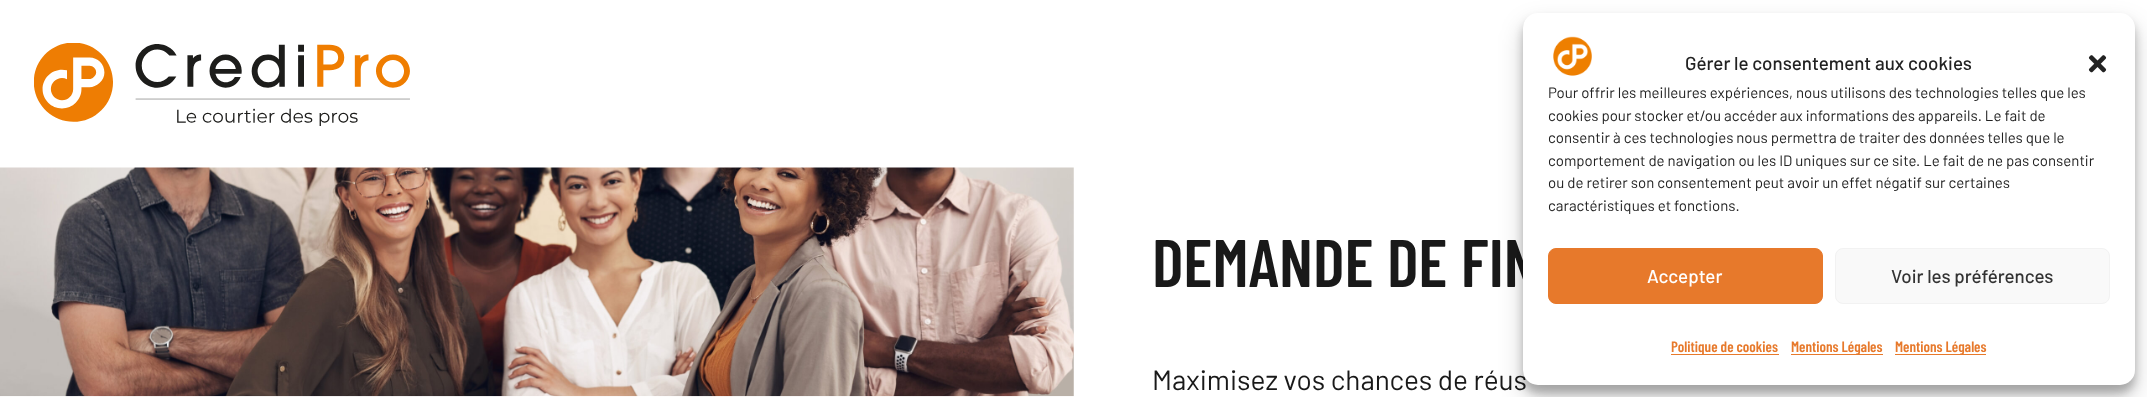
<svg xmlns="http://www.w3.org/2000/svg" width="2147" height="397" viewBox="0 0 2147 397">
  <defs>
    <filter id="blur1" x="-50%" y="-200%" width="200%" height="500%"><feGaussianBlur stdDeviation="4"/></filter>
    <filter id="blur2" x="-50%" y="-200%" width="200%" height="500%"><feGaussianBlur stdDeviation="12.5"/></filter>
  </defs>
  <rect width="100%" height="100%" fill="#ffffff"/>
  <image x="34" y="43" width="376" height="83" href="img1.png"/>
  <image x="0" y="167" width="1074" height="230" href="img2.png"/>
  <text x="1152" y="287" font-family="Barlow Condensed" font-size="67" font-weight="600" fill="#191919">DEMANDE DE FIN</text>
  <text x="1152" y="390" font-family="Barlow" font-size="28" fill="#191919">Maximisez vos chances de réus</text>
  <rect x="1523" y="20" width="612" height="373" rx="15" fill="#000000" fill-opacity="0.23" filter="url(#blur1)"/>
  <rect x="1523" y="25" width="612" height="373" rx="15" fill="#000000" fill-opacity="0.19" filter="url(#blur2)"/>
  <rect x="1523" y="13" width="612" height="372" rx="15" fill="#ffffff"/>
  <image x="1553" y="36" width="39" height="40" href="img3.png"/>
  <text x="1685" y="70" font-family="Barlow" font-size="18.75" font-weight="500" fill="#222222">Gérer le consentement aux cookies</text>
  <image x="2088" y="55" width="19" height="18" href="img4.png"/>
  <text x="1548" y="98" font-family="Barlow" font-size="15" fill="#222222">Pour offrir les meilleures expériences, nous utilisons des technologies telles que les</text>
  <text x="1548" y="121" font-family="Barlow" font-size="15" fill="#222222">cookies pour stocker et/ou accéder aux informations des appareils. Le fait de</text>
  <text x="1548" y="143" font-family="Barlow" font-size="15" fill="#222222">consentir à ces technologies nous permettra de traiter des données telles que le</text>
  <text x="1548" y="166" font-family="Barlow" font-size="15" fill="#222222">comportement de navigation ou les ID uniques sur ce site. Le fait de ne pas consentir</text>
  <text x="1548" y="188" font-family="Barlow" font-size="15" fill="#222222">ou de retirer son consentement peut avoir un effet négatif sur certaines</text>
  <text x="1548" y="211" font-family="Barlow" font-size="15" fill="#222222">caractéristiques et fonctions.</text>
  <rect x="1548.5" y="248.5" width="274" height="55" rx="7.5" fill="#e7792b" stroke="#e7792b"/>
  <text x="1647" y="283" font-family="Barlow" font-size="18.75" font-weight="500" fill="#ffffff">Accepter</text>
  <rect x="1835.5" y="248.5" width="274" height="55" rx="7.5" fill="#f9f9f9" stroke="#f2f2f2"/>
  <text x="1891" y="283" font-family="Barlow" font-size="18.75" font-weight="500" fill="#333333">Voir les préférences</text>
  <rect x="1671" y="354" width="108" height="1" fill="#e7792b"/>
  <text x="1671" y="352" font-family="Barlow Condensed" font-size="15" font-weight="600" fill="#e7792b">Politique de cookies</text>
  <rect x="1791" y="354" width="92" height="1" fill="#e7792b"/>
  <text x="1791" y="352" font-family="Barlow Condensed" font-size="15" font-weight="600" fill="#e7792b">Mentions Légales</text>
  <rect x="1895" y="354" width="91" height="1" fill="#e7792b"/>
  <text x="1895" y="352" font-family="Barlow Condensed" font-size="15" font-weight="600" fill="#e7792b">Mentions Légales</text>
</svg>
